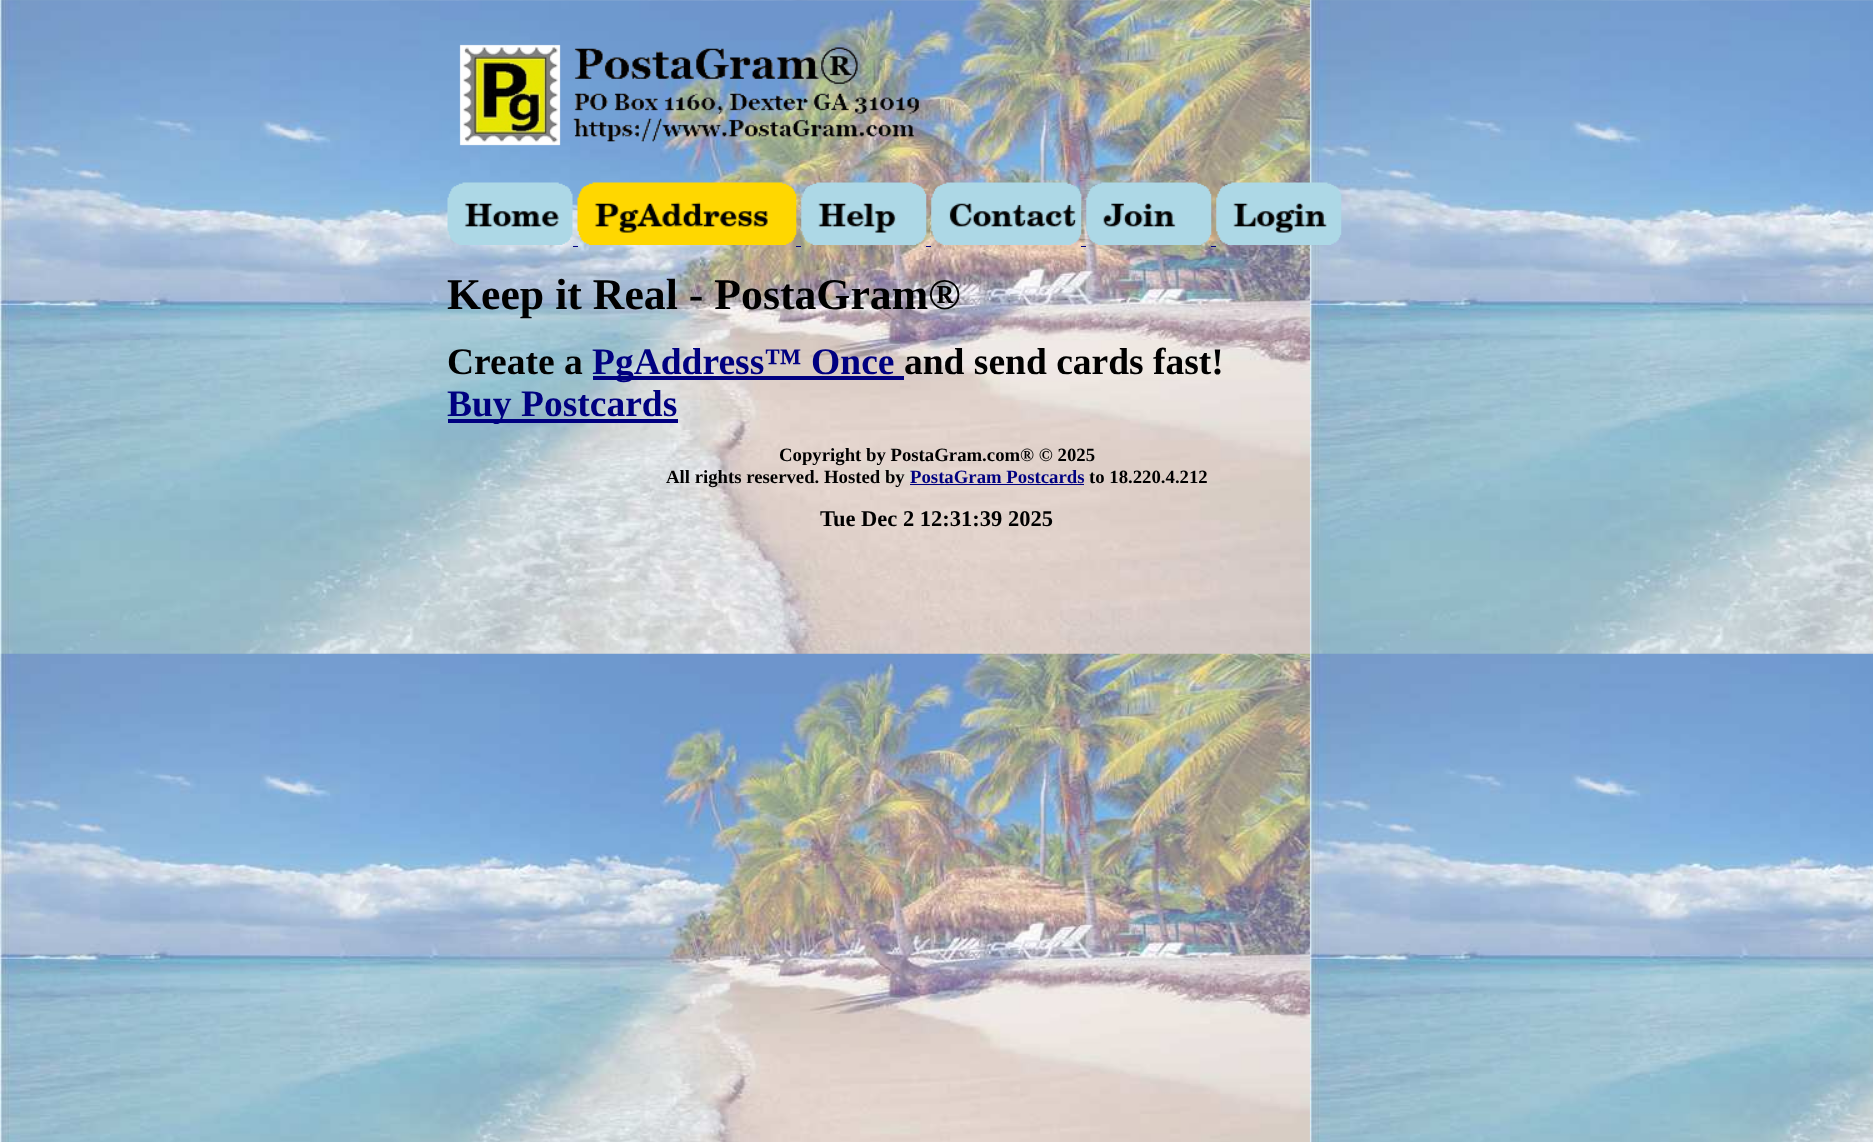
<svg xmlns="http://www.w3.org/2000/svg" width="1873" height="1142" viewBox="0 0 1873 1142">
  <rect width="100%" height="100%" fill="#ffffff"/>
  <image x="0" y="0" width="1873" height="1142" href="img1.png"/>
  <image x="459" y="44" width="460" height="102" href="img2.png"/>
  <image x="447" y="182" width="126" height="63" href="img3.png"/>
  <image x="577" y="182" width="220" height="63" href="img4.png"/>
  <image x="801" y="182" width="126" height="63" href="img5.png"/>
  <image x="931" y="182" width="151" height="63" href="img6.png"/>
  <image x="1086" y="182" width="126" height="63" href="img7.png"/>
  <image x="1216" y="182" width="126" height="63" href="img8.png"/>
  <rect x="573" y="246" width="5" height="1" fill="#000080"/>
  <rect x="796" y="246" width="5" height="1" fill="#000080"/>
  <rect x="926" y="246" width="5" height="1" fill="#000080"/>
  <rect x="1081" y="246" width="5" height="1" fill="#000080"/>
  <rect x="1211" y="246" width="5" height="1" fill="#000080"/>
  <text x="447" y="309" font-family="Liberation Serif" font-size="43.75" font-weight="bold" fill="#000000">Keep it Real - PostaGram®</text>
  <text x="447" y="374" font-family="Liberation Serif" font-size="37.5" font-weight="bold" fill="#000000">Create a</text>
  <rect x="593" y="376" width="311" height="4" fill="#000080"/>
  <text x="592" y="374" font-family="Liberation Serif" font-size="37.5" font-weight="bold" fill="#000080">PgAddress™ Once</text>
  <text x="904" y="374" font-family="Liberation Serif" font-size="37.5" font-weight="bold" fill="#000000">and send cards fast!</text>
  <rect x="448" y="419" width="230" height="4" fill="#000080"/>
  <text x="447" y="416" font-family="Liberation Serif" font-size="37.5" font-weight="bold" fill="#000080">Buy Postcards</text>
  <text x="779" y="461" font-family="Liberation Serif" font-size="18.75" font-weight="bold" fill="#000000">Copyright by PostaGram.com® © 2025</text>
  <text x="666" y="483" font-family="Liberation Serif" font-size="18.75" font-weight="bold" fill="#000000">All rights reserved. Hosted by</text>
  <text x="910" y="483" font-family="Liberation Serif" font-size="18.75" font-weight="bold" fill="#000080">PostaGram Postcards</text>
  <rect x="910" y="484" width="174" height="1" fill="#000080"/>
  <text x="1089" y="483" font-family="Liberation Serif" font-size="18.75" font-weight="bold" fill="#000000">to 18.220.4.212</text>
  <text x="820" y="526" font-family="Liberation Serif" font-size="22.5" font-weight="bold" fill="#000000">Tue Dec 2 12:31:39 2025</text>
</svg>
